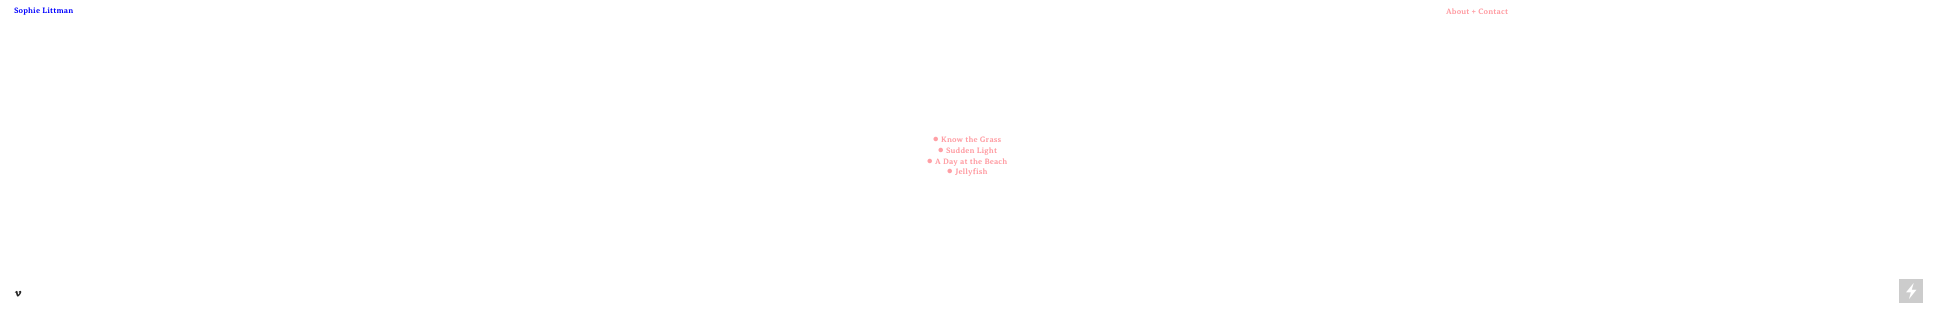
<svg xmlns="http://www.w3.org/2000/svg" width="1933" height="313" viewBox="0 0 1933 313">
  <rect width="100%" height="100%" fill="#ffffff"/>
  <text x="14" y="13" font-family="Averia Serif Libre" font-size="8" font-weight="bold" letter-spacing="0.1" fill="#0000ff">Sophie Littman</text>
  <text x="1446" y="14" font-family="Averia Serif Libre" font-size="8" font-weight="bold" letter-spacing="0.1" fill="#ff9fa5">About + Contact</text>
  <image x="933" y="136" width="5" height="6" href="img1.png"/>
  <text x="941" y="142" font-family="Averia Serif Libre" font-size="8" font-weight="bold" letter-spacing="0.1" fill="#ff9fa5">Know the Grass</text>
  <image x="938" y="147" width="5" height="6" href="img1.png"/>
  <text x="946" y="153" font-family="Averia Serif Libre" font-size="8" font-weight="bold" letter-spacing="0.1" fill="#ff9fa5">Sudden Light</text>
  <image x="927" y="158" width="5" height="6" href="img1.png"/>
  <text x="935" y="164" font-family="Averia Serif Libre" font-size="8" font-weight="bold" letter-spacing="0.1" fill="#ff9fa5">A Day at the Beach</text>
  <image x="947" y="168" width="5" height="6" href="img1.png"/>
  <text x="955" y="174" font-family="Averia Serif Libre" font-size="8" font-weight="bold" letter-spacing="0.1" fill="#ff9fa5">Jellyfish</text>
  <image x="14" y="290" width="8" height="7" href="img2.png"/>
  <rect x="1899" y="279" width="24" height="24" fill="#cccccc"/>
  <image x="1906" y="283" width="11" height="16" href="img3.png"/>
</svg>
